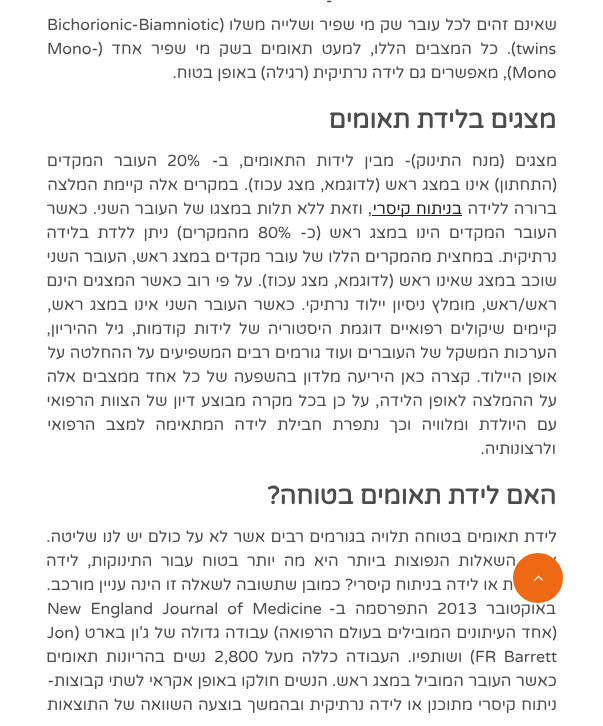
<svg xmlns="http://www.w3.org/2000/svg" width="603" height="726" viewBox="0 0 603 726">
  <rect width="100%" height="100%" fill="#ffffff"/>
  <text x="326" y="6" word-spacing="4.5" font-family="Varela Round" font-size="16" fill="#4c4c4c">-</text>
  <text x="557" y="30" word-spacing="0.75" font-family="Varela Round" font-size="16" direction="rtl" fill="#4c4c4c">שאינם זהים לכל עובר שק מי שפיר ושלייה משלו (</text>
  <text x="47" y="30" font-family="Varela Round" font-size="16" fill="#4c4c4c">Bichorionic-Biamniotic</text>
  <text x="516" y="54" font-family="Varela Round" font-size="16" fill="#4c4c4c">twins</text>
  <text x="516" y="54" word-spacing="4.5" font-family="Varela Round" font-size="16" direction="rtl" fill="#4c4c4c">). כל המצבים הללו, למעט תאומים בשק מי שפיר אחד (</text>
  <text x="47" y="54" font-family="Varela Round" font-size="16" fill="#4c4c4c">Mono-</text>
  <text x="512" y="78" font-family="Varela Round" font-size="16" fill="#4c4c4c">Mono</text>
  <text x="512" y="78" font-family="Varela Round" font-size="16" direction="rtl" fill="#4c4c4c">), מאפשרים גם לידה נרתיקית (רגילה) באופן בטוח.</text>
  <text x="556" y="128" font-family="Varela Round" font-size="25" font-weight="bold" direction="rtl" fill="#4c4c4c">מצגים בלידת תאומים</text>
  <text x="557" y="166" word-spacing="6.25" font-family="Varela Round" font-size="16" direction="rtl" fill="#4c4c4c">מצגים (מנח התינוק)- מבין לידות התאומים, ב-</text>
  <text x="167" y="166" font-family="Varela Round" font-size="16" fill="#4c4c4c">20%</text>
  <text x="157" y="166" word-spacing="6.25" font-family="Varela Round" font-size="16" direction="rtl" fill="#4c4c4c">העובר המקדים</text>
  <text x="557" y="190" word-spacing="1" font-family="Varela Round" font-size="16" direction="rtl" fill="#4c4c4c">(התחתון) אינו במצג ראש (לדוגמא, מצג עכוז). במקרים אלה קיימת המלצה</text>
  <text x="557" y="214" word-spacing="1" font-family="Varela Round" font-size="16" direction="rtl" fill="#4c4c4c">ברורה ללידה</text>
  <rect x="372" y="215" width="90" height="1" fill="#1f1f1f"/>
  <text x="462" y="214" word-spacing="1" font-family="Varela Round" font-size="16" direction="rtl" fill="#1f1f1f">בניתוח קיסרי</text>
  <text x="372" y="214" word-spacing="1" font-family="Varela Round" font-size="16" direction="rtl" fill="#4c4c4c">, וזאת ללא תלות במצגו של העובר השני. כאשר</text>
  <text x="557" y="238" word-spacing="4.25" font-family="Varela Round" font-size="16" direction="rtl" fill="#4c4c4c">העובר המקדים הינו במצג ראש (כ-</text>
  <text x="258" y="238" font-family="Varela Round" font-size="16" fill="#4c4c4c">80%</text>
  <text x="249" y="238" word-spacing="4.25" font-family="Varela Round" font-size="16" direction="rtl" fill="#4c4c4c">מהמקרים) ניתן ללדת בלידה</text>
  <text x="557" y="262" word-spacing="0.4" font-family="Varela Round" font-size="16" direction="rtl" fill="#4c4c4c">נרתיקית. במחצית מהמקרים הללו של עובר מקדים במצג ראש, העובר השני</text>
  <text x="557" y="286" word-spacing="1" font-family="Varela Round" font-size="16" direction="rtl" fill="#4c4c4c">שוכב במצג שאינו ראש (לדוגמא, מצג עכוז). על פי רוב כאשר המצגים הינם</text>
  <text x="557" y="310" word-spacing="2.25" font-family="Varela Round" font-size="16" direction="rtl" fill="#4c4c4c">ראש/ראש, מומלץ ניסיון יילוד נרתיקי. כאשר העובר השני אינו במצג ראש,</text>
  <text x="557" y="334" word-spacing="3.5" font-family="Varela Round" font-size="16" direction="rtl" fill="#4c4c4c">קיימים שיקולים רפואיים דוגמת היסטוריה של לידות קודמות, גיל ההיריון,</text>
  <text x="557" y="358" word-spacing="0.5" font-family="Varela Round" font-size="16" direction="rtl" fill="#4c4c4c">הערכות המשקל של העוברים ועוד גורמים רבים המשפיעים על ההחלטה על</text>
  <text x="557" y="382" word-spacing="2" font-family="Varela Round" font-size="16" direction="rtl" fill="#4c4c4c">אופן היילוד. קצרה כאן היריעה מלדון בהשפעה של כל אחד ממצבים אלה</text>
  <text x="557" y="406" word-spacing="1.7" font-family="Varela Round" font-size="16" direction="rtl" fill="#4c4c4c">על ההמלצה לאופן הלידה, על כן בכל מקרה מבוצע דיון של הצוות הרפואי</text>
  <text x="557" y="430" word-spacing="6" font-family="Varela Round" font-size="16" direction="rtl" fill="#4c4c4c">עם היולדת ומלוויה וכך נתפרת חבילת לידה המתאימה למצב הרפואי</text>
  <text x="556" y="454" font-family="Varela Round" font-size="16" direction="rtl" fill="#4c4c4c">ולרצונותיה.</text>
  <text x="556" y="504" font-family="Varela Round" font-size="25" font-weight="bold" direction="rtl" fill="#4c4c4c">האם לידת תאומים בטוחה?</text>
  <text x="557" y="542" word-spacing="1" font-family="Varela Round" font-size="16" direction="rtl" fill="#4c4c4c">לידת תאומים בטוחה תלויה בגורמים רבים אשר לא על כולם יש לנו שליטה.</text>
  <text x="557" y="566" word-spacing="4.25" font-family="Varela Round" font-size="16" direction="rtl" fill="#4c4c4c">אחת השאלות הנפוצות ביותר היא מה יותר בטוח עבור התינוקות, לידה</text>
  <text x="557" y="590" word-spacing="0.25" font-family="Varela Round" font-size="16" direction="rtl" fill="#4c4c4c">נרתיקית או לידה בניתוח קיסרי? כמובן שתשובה לשאלה זו הינה עניין מורכב.</text>
  <text x="556" y="614" font-family="Varela Round" font-size="16" direction="rtl" fill="#4c4c4c">באוקטובר</text>
  <text x="437" y="614" font-family="Varela Round" font-size="16" fill="#4c4c4c">2013</text>
  <text x="428" y="614" word-spacing="5" font-family="Varela Round" font-size="16" direction="rtl" fill="#4c4c4c">התפרסמה ב-</text>
  <text x="47" y="614" word-spacing="5" font-family="Varela Round" font-size="16" fill="#4c4c4c">New England Journal of Medicine</text>
  <text x="557" y="638" word-spacing="1" font-family="Varela Round" font-size="16" direction="rtl" fill="#4c4c4c">(אחד העיתונים המובילים בעולם הרפואה) עבודה גדולה של ג'ון בארט (</text>
  <text x="47" y="638" font-family="Varela Round" font-size="16" fill="#4c4c4c">Jon</text>
  <text x="475" y="662" word-spacing="3.5" font-family="Varela Round" font-size="16" fill="#4c4c4c">FR Barrett</text>
  <text x="475" y="662" word-spacing="3.5" font-family="Varela Round" font-size="16" direction="rtl" fill="#4c4c4c">) ושותפיו. העבודה כללה מעל</text>
  <text x="214" y="662" font-family="Varela Round" font-size="16" fill="#4c4c4c">2,800</text>
  <text x="206" y="662" word-spacing="3.5" font-family="Varela Round" font-size="16" direction="rtl" fill="#4c4c4c">נשים בהריונות תאומים</text>
  <text x="557" y="686" word-spacing="0.25" font-family="Varela Round" font-size="16" direction="rtl" fill="#4c4c4c">כאשר העובר המוביל במצג ראש. הנשים חולקו באופן אקראי לשתי קבוצות-</text>
  <text x="557" y="710" word-spacing="1" font-family="Varela Round" font-size="16" direction="rtl" fill="#4c4c4c">ניתוח קיסרי מתוכנן או לידה נרתיקית ובהמשך בוצעה השוואה של התוצאות</text>
  <circle cx="538" cy="578" r="24" fill="#ef6915" stroke="#ef6915" stroke-width="2"/>
  <image x="534" y="575" width="9" height="6" href="img1.png"/>
</svg>
